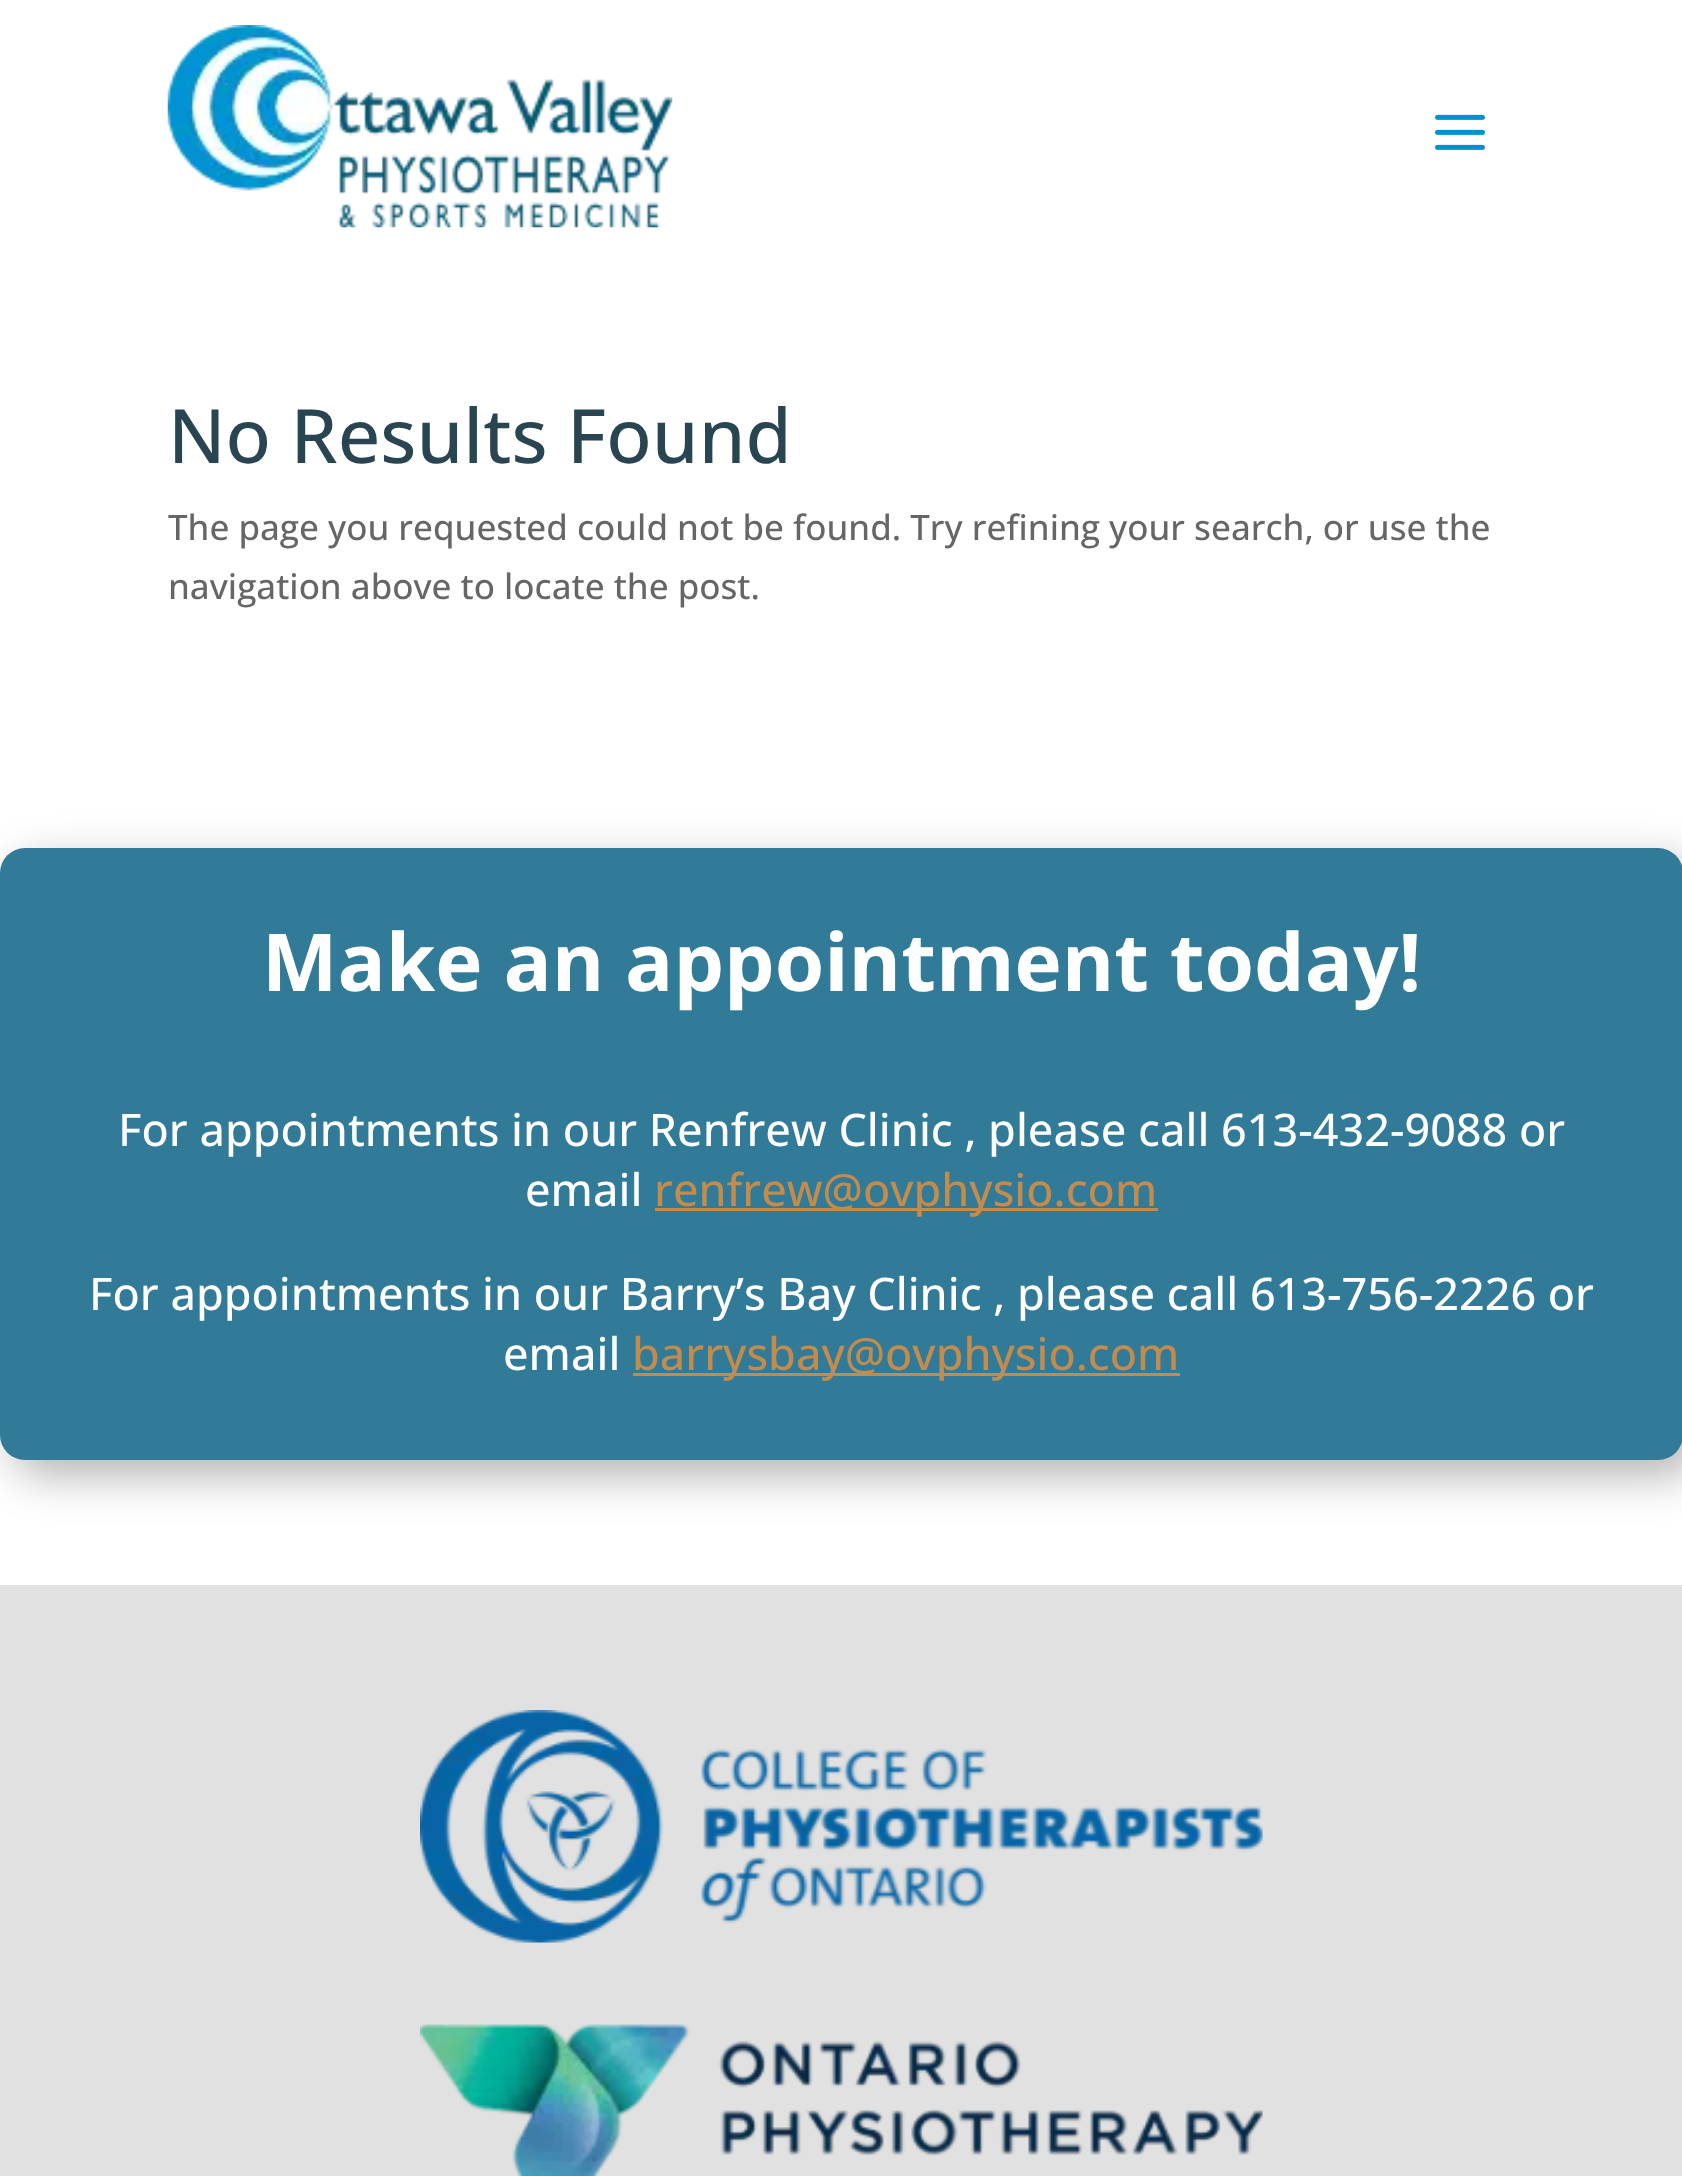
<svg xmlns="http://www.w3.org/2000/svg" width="1682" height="2176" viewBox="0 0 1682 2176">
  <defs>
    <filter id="blur1" x="-50%" y="-200%" width="200%" height="500%"><feGaussianBlur stdDeviation="22.5"/></filter>
  </defs>
  <rect width="100%" height="100%" fill="#ffffff"/>
  <image x="167" y="25" width="506" height="203" href="img1.png"/>
  <image x="1435" y="114" width="50" height="36" href="img2.png"/>
  <text x="168" y="463" font-family="Open Sans" font-size="75" font-weight="500" fill="#294552">No Results Found</text>
  <text x="168" y="540" font-family="Open Sans" font-size="35" font-weight="500" fill="#666666">The page you requested could not be found. Try refining your search, or use the</text>
  <text x="168" y="599" font-family="Open Sans" font-size="35" font-weight="500" fill="#666666">navigation above to locate the post.</text>
  <rect x="15" y="863" width="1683" height="612" rx="25" fill="#101010" fill-opacity="0.3" filter="url(#blur1)"/>
  <rect x="0" y="848" width="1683" height="612" rx="25" fill="#317a98"/>
  <text x="262" y="991" font-family="Open Sans" font-size="80" font-weight="bold" fill="#ffffff">Make an appointment today!</text>
  <text x="118" y="1146" font-family="Open Sans" font-size="45" font-weight="500" fill="#ffffff">For appointments in our Renfrew Clinic , please call 613-432-9088 or</text>
  <text x="525" y="1206" font-family="Open Sans" font-size="45" font-weight="500" fill="#ffffff">email</text>
  <rect x="655" y="1208" width="503" height="3" fill="#c38c4d"/>
  <text x="654" y="1206" font-family="Open Sans" font-size="45" font-weight="500" fill="#c38c4d">renfrew@ovphysio.com</text>
  <text x="89" y="1310" font-family="Open Sans" font-size="45" font-weight="500" fill="#ffffff">For appointments in our Barry’s Bay Clinic , please call 613-756-2226 or</text>
  <text x="503" y="1370" font-family="Open Sans" font-size="45" font-weight="500" fill="#ffffff">email</text>
  <rect x="633" y="1373" width="547" height="3" fill="#c38c4d"/>
  <text x="632" y="1370" font-family="Open Sans" font-size="45" font-weight="500" fill="#c38c4d">barrysbay@ovphysio.com</text>
  <rect x="0" y="1585" width="1682" height="591" fill="#e1e1e1"/>
  <image x="420" y="1710" width="843" height="233" href="img3.png"/>
  <image x="420" y="2024" width="843" height="152" href="img4.png"/>
</svg>
